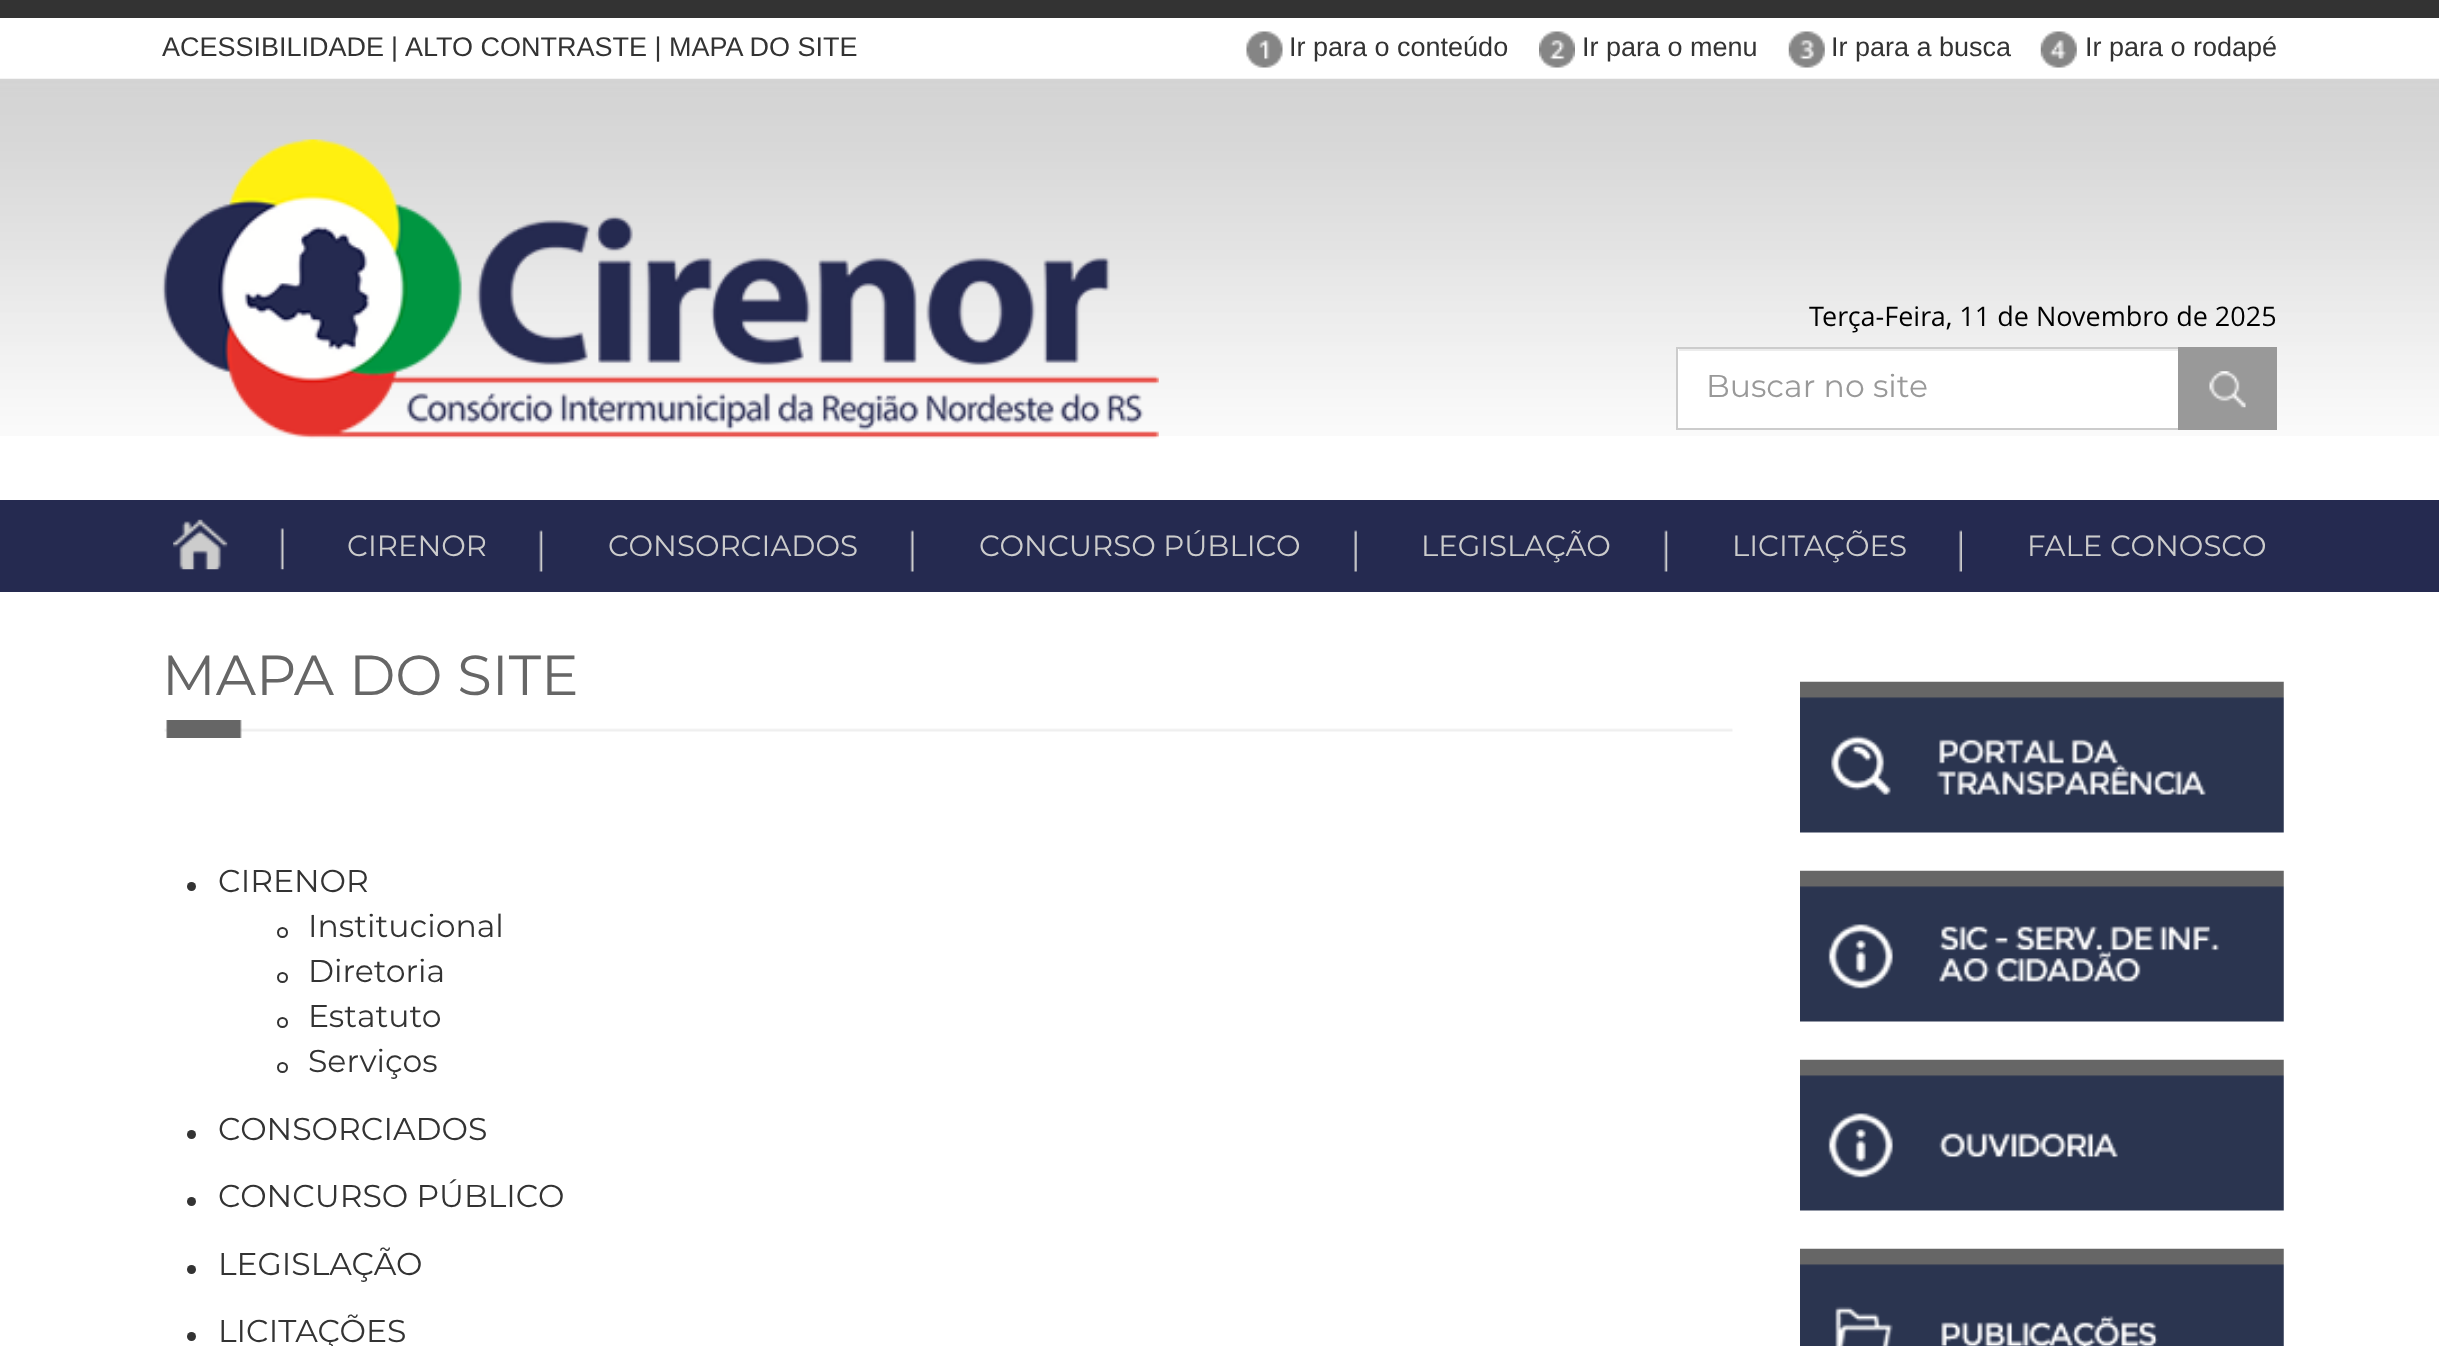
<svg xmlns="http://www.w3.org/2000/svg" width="2439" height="1346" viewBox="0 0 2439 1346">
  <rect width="100%" height="100%" fill="#ffffff"/>
  <rect x="0" y="0" width="2439" height="18" fill="#333333"/>
  <text x="162" y="56" font-family="Liberation Sans" font-size="27" fill="#333333">ACESSIBILIDADE</text>
  <text x="391" y="56" font-family="Liberation Sans" font-size="27" fill="#333333">|</text>
  <text x="405" y="56" font-family="Liberation Sans" font-size="27" fill="#333333">ALTO CONTRASTE | MAPA DO SITE</text>
  <image x="1246" y="31" width="37" height="37" href="img1.png"/>
  <text x="1289" y="56" font-family="Liberation Sans" font-size="27" fill="#333333">Ir para o conteúdo</text>
  <image x="1539" y="31" width="36" height="37" href="img2.png"/>
  <text x="1582" y="56" font-family="Liberation Sans" font-size="27" fill="#333333">Ir para o menu</text>
  <image x="1788" y="31" width="37" height="37" href="img3.png"/>
  <text x="1831" y="56" font-family="Liberation Sans" font-size="27" fill="#333333">Ir para a busca</text>
  <image x="2040" y="31" width="37" height="37" href="img4.png"/>
  <text x="2085" y="56" font-family="Liberation Sans" font-size="27" fill="#333333">Ir para o rodapé</text>
  <image x="0" y="78" width="2439" height="358" href="img5.png"/>
  <image x="162" y="139" width="997" height="300" href="img6.png"/>
  <text x="1809" y="326" font-family="Open Sans" font-size="27" fill="#000000">Terça-Feira, 11 de Novembro de 2025</text>
  <rect x="1678" y="349" width="500" height="79" fill="#ffffff"/>
  <rect x="1679" y="349" width="499" height="2" fill="#ececec"/>
  <rect x="1677" y="348" width="599" height="81" fill="none" stroke="#cccccc" stroke-width="2"/>
  <text x="1706" y="397" font-family="Montserrat" font-size="31.5" fill="#999999">Buscar no site</text>
  <rect x="2178" y="347" width="99" height="83" fill="#999999"/>
  <image x="2209" y="371" width="37" height="37" href="img7.png"/>
  <rect x="0" y="500" width="2439" height="92" fill="#252a50"/>
  <image x="280" y="528" width="4" height="42" href="img8.png"/>
  <image x="173" y="519" width="55" height="51" href="img9.png"/>
  <image x="539" y="530" width="4" height="42" href="img10.png"/>
  <text x="347" y="556" font-family="Montserrat" font-size="29.25" fill="#cccccc">CIRENOR</text>
  <image x="910" y="530" width="4" height="42" href="img11.png"/>
  <text x="608" y="556" font-family="Montserrat" font-size="29.25" fill="#cccccc">CONSORCIADOS</text>
  <image x="1354" y="530" width="3" height="42" href="img12.png"/>
  <text x="979" y="556" font-family="Montserrat" font-size="29.25" fill="#cccccc">CONCURSO PÚBLICO</text>
  <image x="1664" y="530" width="4" height="42" href="img10.png"/>
  <text x="1421" y="556" font-family="Montserrat" font-size="29.25" fill="#cccccc">LEGISLAÇÃO</text>
  <image x="1959" y="530" width="3" height="42" href="img13.png"/>
  <text x="1732" y="556" font-family="Montserrat" font-size="29.25" fill="#cccccc">LICITAÇÕES</text>
  <text x="2027" y="556" font-family="Montserrat" font-size="29.25" fill="#cccccc">FALE CONOSCO</text>
  <image x="164" y="720" width="1569" height="18" href="img14.png"/>
  <text x="162" y="695" font-family="Montserrat" font-size="56.25" fill="#666666">MAPA DO SITE</text>
  <circle cx="191.5" cy="886.5" r="4.5" fill="#333333"/>
  <text x="218" y="892" font-family="Montserrat" font-size="31.5" fill="#333333">CIRENOR</text>
  <circle cx="282.5" cy="932.5" r="4.5" fill="none" stroke="#333333" stroke-width="2"/>
  <text x="308" y="937" font-family="Montserrat" font-size="31.5" fill="#333333">Institucional</text>
  <circle cx="282.5" cy="977.5" r="4.5" fill="none" stroke="#333333" stroke-width="2"/>
  <text x="308" y="982" font-family="Montserrat" font-size="31.5" fill="#333333">Diretoria</text>
  <circle cx="282.5" cy="1022.5" r="4.5" fill="none" stroke="#333333" stroke-width="2"/>
  <text x="308" y="1027" font-family="Montserrat" font-size="31.5" fill="#333333">Estatuto</text>
  <circle cx="282.5" cy="1067.5" r="4.5" fill="none" stroke="#333333" stroke-width="2"/>
  <text x="308" y="1072" font-family="Montserrat" font-size="31.5" fill="#333333">Serviços</text>
  <circle cx="191.5" cy="1134.5" r="4.5" fill="#333333"/>
  <text x="218" y="1140" font-family="Montserrat" font-size="31.5" fill="#333333">CONSORCIADOS</text>
  <circle cx="191.5" cy="1201.5" r="4.5" fill="#333333"/>
  <text x="218" y="1207" font-family="Montserrat" font-size="31.5" fill="#333333">CONCURSO PÚBLICO</text>
  <circle cx="191.5" cy="1269.5" r="4.5" fill="#333333"/>
  <text x="218" y="1275" font-family="Montserrat" font-size="31.5" fill="#333333">LEGISLAÇÃO</text>
  <circle cx="191.5" cy="1336.5" r="4.5" fill="#333333"/>
  <text x="218" y="1342" font-family="Montserrat" font-size="31.5" fill="#333333">LICITAÇÕES</text>
  <image x="1800" y="681" width="484" height="152" href="img15.png"/>
  <image x="1800" y="870" width="484" height="152" href="img16.png"/>
  <image x="1800" y="1059" width="484" height="152" href="img17.png"/>
  <image x="1800" y="1248" width="484" height="98" href="img18.png"/>
</svg>
